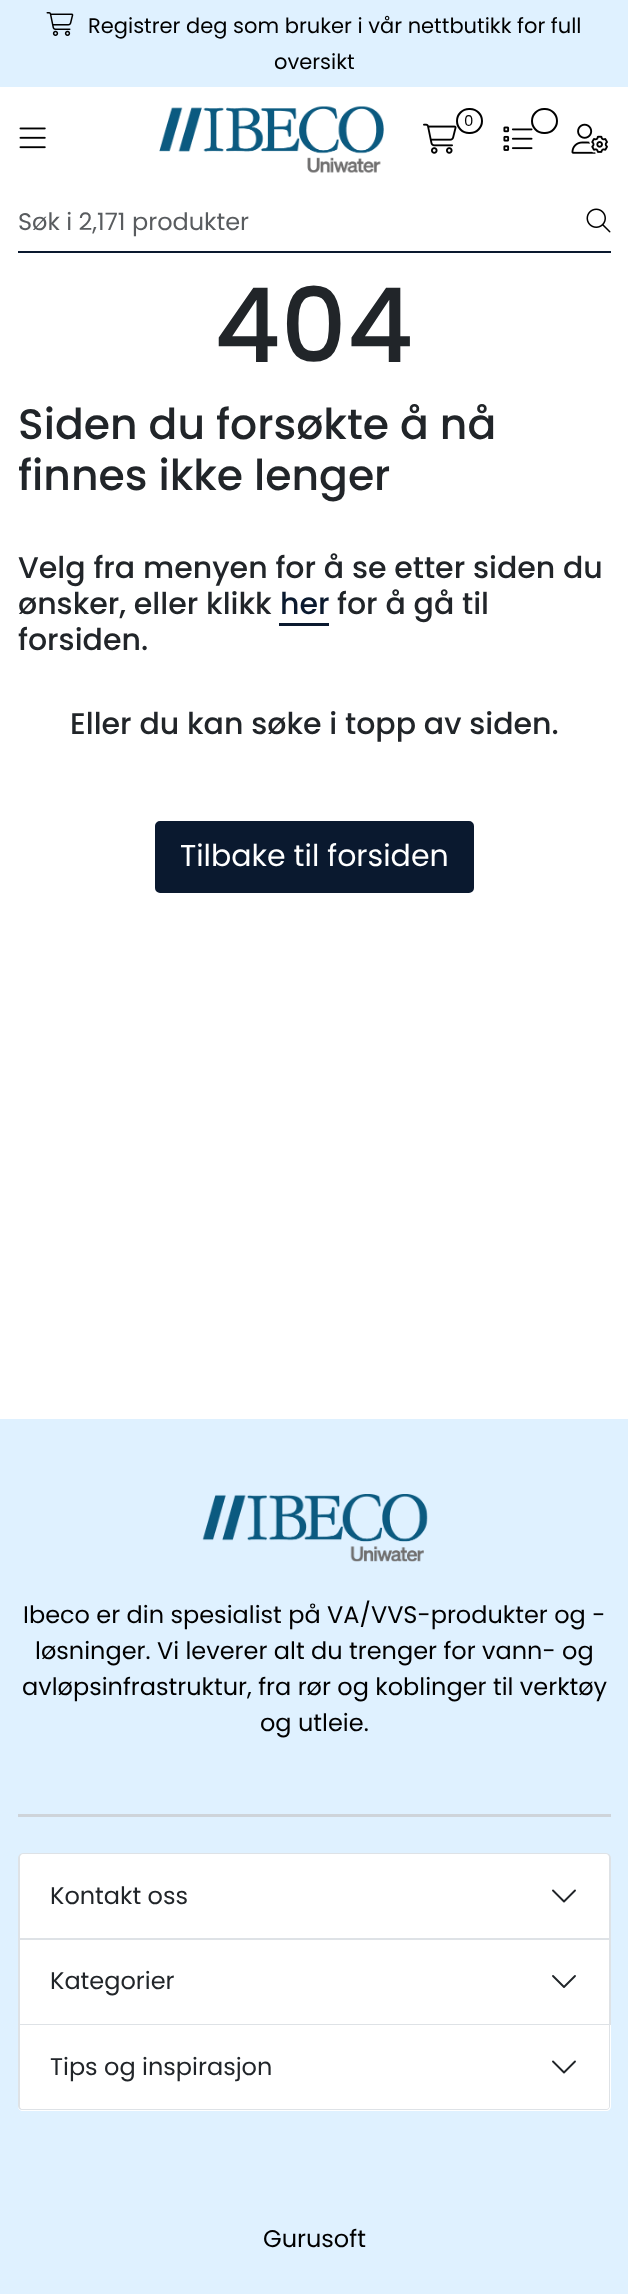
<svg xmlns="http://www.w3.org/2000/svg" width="628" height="2294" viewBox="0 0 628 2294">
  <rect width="100%" height="100%" fill="#ffffff"/>
  <rect x="0" y="0" width="628" height="87" fill="#dff1ff"/>
  <image x="46" y="12" width="28" height="24" href="img1.png"/>
  <text x="88" y="33" font-family="Poppins" font-size="21" fill="#000000">Registrer deg som bruker i vår nettbutikk for full</text>
  <text x="274" y="69" font-family="Poppins" font-size="21" fill="#000000">oversikt</text>
  <image x="159" y="106" width="225" height="67" href="img2.png"/>
  <image x="423" y="123" width="34" height="31" href="img3.png"/>
  <rect x="457" y="109" width="25" height="24" rx="12" fill="none" stroke="#000000" stroke-width="2"/>
  <text x="464" y="126" font-family="Poppins" font-size="15" fill="#000000">0</text>
  <image x="503" y="126" width="30" height="25" href="img4.png"/>
  <rect x="532" y="109" width="25" height="24" rx="12" fill="none" stroke="#000000" stroke-width="2"/>
  <image x="571" y="123" width="37" height="31" href="img5.png"/>
  <image x="19" y="127" width="27" height="22" href="img6.png"/>
  <rect x="18" y="251" width="593" height="2" fill="#0a192f"/>
  <text x="18" y="230" font-family="Poppins" font-size="24" fill="#595c5f">Søk i 2,171 produkter</text>
  <image x="586" y="208" width="25" height="25" href="img7.png"/>
  <text x="214" y="362" font-family="Poppins" font-size="103" font-weight="500" fill="#212529">404</text>
  <text x="18" y="439" font-family="Poppins" font-size="42.5" font-weight="500" fill="#212529">Siden du forsøkte å nå</text>
  <text x="18" y="490" font-family="Poppins" font-size="42.5" font-weight="500" fill="#212529">finnes ikke lenger</text>
  <text x="18" y="578" font-family="Poppins" font-size="30" font-weight="500" fill="#212529">Velg fra menyen for å se etter siden du</text>
  <text x="18" y="614" font-family="Poppins" font-size="30" font-weight="500" fill="#212529">ønsker, eller klikk</text>
  <text x="280" y="614" font-family="Poppins" font-size="30" font-weight="500" fill="#0a192f">her</text>
  <rect x="279" y="623" width="50" height="3" fill="#0a192f"/>
  <text x="337" y="614" font-family="Poppins" font-size="30" font-weight="500" fill="#212529">for å gå til</text>
  <text x="18" y="650" font-family="Poppins" font-size="30" font-weight="500" fill="#212529">forsiden.</text>
  <text x="70" y="734" font-family="Poppins" font-size="30" font-weight="500" fill="#212529">Eller du kan søke i topp av siden.</text>
  <rect x="156" y="822" width="317" height="70" rx="4" fill="#0a192f" stroke="#0a192f" stroke-width="2"/>
  <text x="180" y="866" font-family="Poppins" font-size="30" fill="#ffffff">Tilbake til forsiden</text>
  <rect x="0" y="1419" width="628" height="875" fill="#dff1ff"/>
  <image x="202" y="1494" width="226" height="68" href="img8.png"/>
  <text x="23" y="1623" font-family="Poppins" font-size="24" fill="#000000">Ibeco er din spesialist på VA/VVS-produkter og -</text>
  <text x="35" y="1659" font-family="Poppins" font-size="24" fill="#000000">løsninger. Vi leverer alt du trenger for vann- og</text>
  <text x="22" y="1695" font-family="Poppins" font-size="24" fill="#000000">avløpsinfrastruktur, fra rør og koblinger til verktøy</text>
  <text x="260" y="1731" font-family="Poppins" font-size="24" fill="#000000">og utleie.</text>
  <rect x="18" y="1814" width="593" height="3" fill="#ced4da"/>
  <path d="M23 1854H606C608 1854 610 1856 610 1858V1939H19V1858C19 1856 21 1854 23 1854Z" fill="none" stroke="#dee2e6" stroke-width="2"/>
  <path d="M23 1854H606C607.5 1854 609 1855.5 609 1857V1938H20V1857C20 1855.5 21.5 1854 23 1854Z" fill="#ffffff"/>
  <text x="50" y="1904" font-family="Poppins" font-size="24" fill="#212529">Kontakt oss</text>
  <path d="M553 1890.5L564 1901.5L575 1890.5" fill="none" stroke="#212529" stroke-width="1.9" stroke-linecap="round" stroke-linejoin="round"/>
  <rect x="20" y="1940" width="589" height="84" fill="#ffffff"/>
  <rect x="609" y="1940" width="2" height="85" fill="#dee2e6"/>
  <rect x="18" y="2024" width="593" height="1" fill="#dee2e6"/>
  <rect x="18" y="1940" width="2" height="85" fill="#dee2e6"/>
  <text x="50" y="1989" font-family="Poppins" font-size="24" fill="#212529">Kategorier</text>
  <path d="M553 1976L564 1987L575 1976" fill="none" stroke="#212529" stroke-width="1.9" stroke-linecap="round" stroke-linejoin="round"/>
  <path d="M18 2025H611V2106C611 2109 609 2111 606 2111H23C20 2111 18 2109 18 2106Z" fill="#ffffff"/>
  <path d="M18 2025H610V2106C610 2108 608 2110 606 2110H22C20 2110 18 2108 18 2106ZM20 2025H609V2106C609 2108 608 2109 606 2109H22C21 2109 20 2108 20 2106Z" fill="#dee2e6" fill-rule="evenodd"/>
  <path d="M20 2025H609V2106C609 2107.5 607.5 2109 606 2109H23C21.5 2109 20 2107.5 20 2106Z" fill="#ffffff"/>
  <text x="50" y="2075" font-family="Poppins" font-size="24" fill="#212529">Tips og inspirasjon</text>
  <path d="M553 2061.5L564 2072.5L575 2061.5" fill="none" stroke="#212529" stroke-width="1.9" stroke-linecap="round" stroke-linejoin="round"/>
  <text x="263" y="2247" font-family="Poppins" font-size="24" fill="#000000">Gurusoft</text>
</svg>
